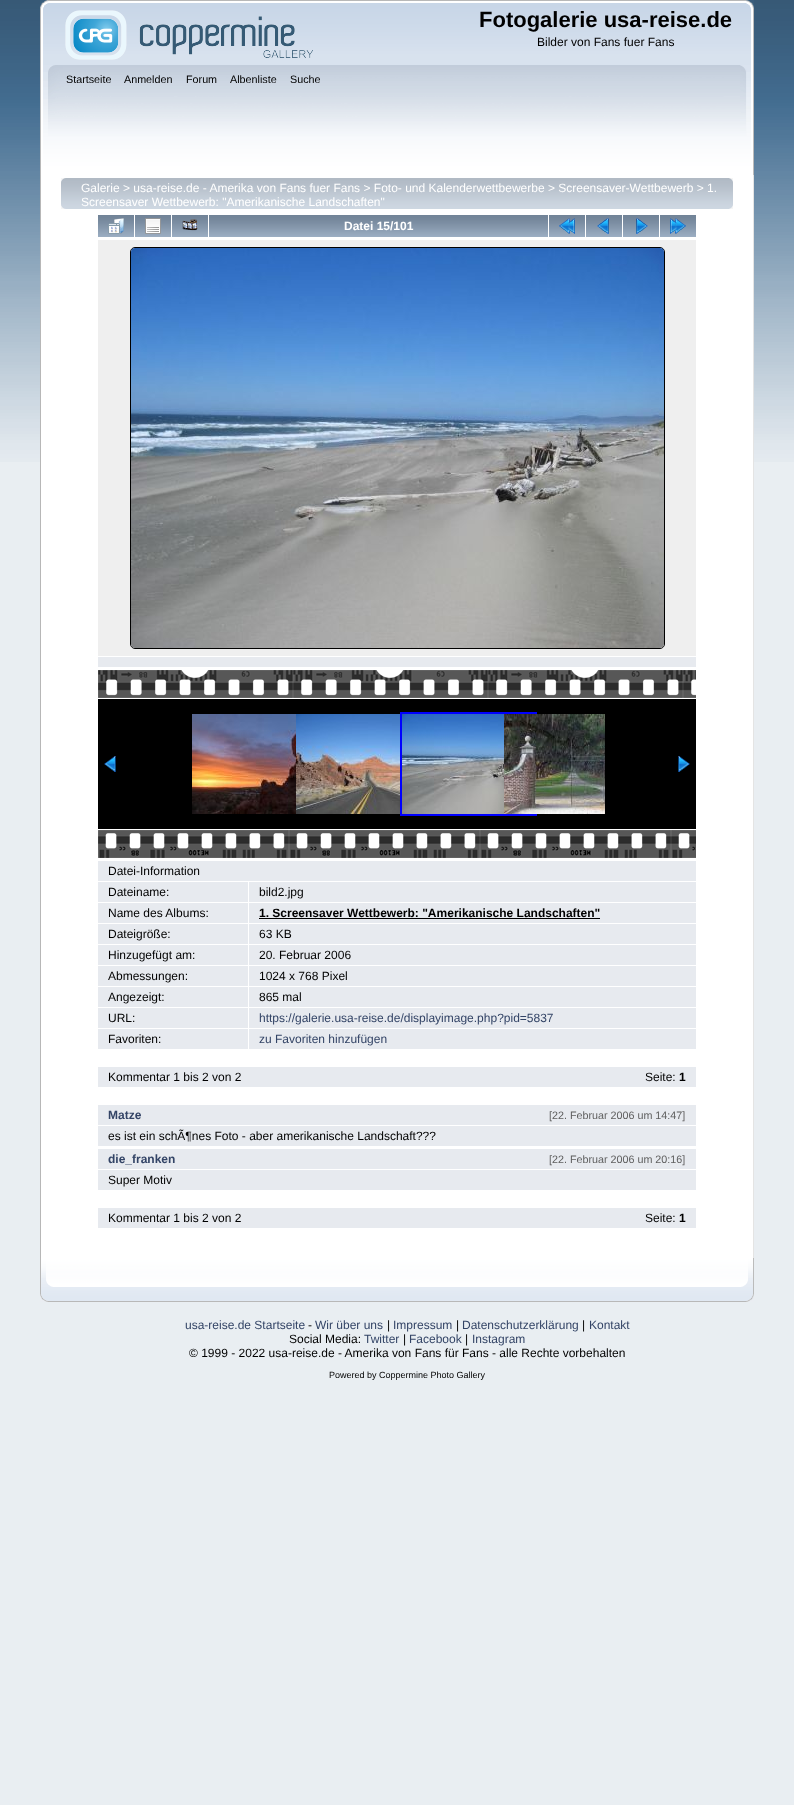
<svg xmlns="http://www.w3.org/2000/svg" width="794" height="1805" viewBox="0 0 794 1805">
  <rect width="100%" height="100%" fill="#e9eef2"/>
  <image x="0" y="0" width="794" height="462" href="img1.png"/>
  <image x="40" y="0" width="706" height="65" href="img2.png"/>
  <image x="746" y="0" width="8" height="65" href="img3.png"/>
  <image x="65" y="10" width="248" height="50" href="img4.png"/>
  <text x="479" y="27" font-family="Liberation Sans" font-size="22" font-weight="bold" fill="#000000">Fotogalerie usa-reise.de</text>
  <text x="537" y="46" font-family="Liberation Sans" font-size="12" fill="#000000">Bilder von Fans fuer Fans</text>
  <image x="40" y="65" width="700" height="110" href="img5.png"/>
  <image x="740" y="65" width="14" height="110" href="img6.png"/>
  <text x="66" y="83" font-family="Liberation Sans" font-size="10.75" fill="#000000">Startseite</text>
  <text x="124" y="83" font-family="Liberation Sans" font-size="10.75" fill="#000000">Anmelden</text>
  <text x="186" y="83" font-family="Liberation Sans" font-size="10.75" fill="#000000">Forum</text>
  <text x="230" y="83" font-family="Liberation Sans" font-size="10.75" fill="#000000">Albenliste</text>
  <text x="290" y="83" font-family="Liberation Sans" font-size="10.75" fill="#000000">Suche</text>
  <rect x="41" y="175" width="712" height="1083" fill="#ffffff"/>
  <rect x="40" y="175" width="1" height="1083" fill="#b7b7b7"/>
  <rect x="753" y="175" width="1" height="1083" fill="#e4e4e4"/>
  <image x="61" y="178" width="668" height="31" href="img7.png"/>
  <image x="729" y="178" width="4" height="31" href="img8.png"/>
  <text x="81" y="192" font-family="Liberation Sans" font-size="12" fill="#ffffff">Galerie &gt; usa-reise.de - Amerika von Fans fuer Fans &gt; Foto- und Kalenderwettbewerbe &gt; Screensaver-Wettbewerb &gt; 1.</text>
  <text x="81" y="206" font-family="Liberation Sans" font-size="12" fill="#ffffff">Screensaver Wettbewerb: "Amerikanische Landschaften"</text>
  <image x="98" y="215" width="36" height="22" href="img9.png"/>
  <image x="108" y="218" width="16" height="16" href="img10.png"/>
  <image x="135" y="215" width="36" height="22" href="img9.png"/>
  <image x="145" y="218" width="16" height="16" href="img11.png"/>
  <image x="172" y="215" width="36" height="22" href="img9.png"/>
  <image x="182" y="219" width="16" height="12" href="img12.png"/>
  <image x="209" y="215" width="339" height="22" href="img13.png"/>
  <text x="344" y="230" font-family="Liberation Sans" font-size="12" font-weight="bold" fill="#ffffff">Datei 15/101</text>
  <image x="549" y="215" width="36" height="22" href="img9.png"/>
  <image x="559" y="218" width="16" height="16" href="img14.png"/>
  <image x="586" y="215" width="36" height="22" href="img9.png"/>
  <image x="597" y="218" width="12" height="16" href="img15.png"/>
  <image x="623" y="215" width="36" height="22" href="img9.png"/>
  <image x="636" y="218" width="12" height="16" href="img16.png"/>
  <image x="660" y="215" width="36" height="22" href="img9.png"/>
  <image x="670" y="218" width="16" height="16" href="img17.png"/>
  <rect x="98" y="240" width="598" height="416" fill="#efefef"/>
  <rect x="130.5" y="247.5" width="534" height="401" rx="4.5" fill="none" stroke="#000000"/>
  <image x="131" y="248" width="533" height="400" href="img18.png"/>
  <rect x="98" y="657" width="598" height="10" fill="#e7eaef"/>
  <image x="98" y="670" width="598" height="28" href="img19.png"/>
  <rect x="98" y="699" width="598" height="130" fill="#000000"/>
  <image x="104" y="756" width="12" height="16" href="img20.png"/>
  <image x="192" y="714" width="104" height="100" href="img21.png"/>
  <image x="296" y="714" width="104" height="100" href="img22.png"/>
  <rect x="401" y="713" width="135" height="102" fill="none" stroke="#0000ff" stroke-width="2"/>
  <image x="402" y="714" width="102" height="100" href="img23.png"/>
  <image x="504" y="714" width="101" height="100" href="img24.png"/>
  <image x="678" y="756" width="12" height="16" href="img25.png"/>
  <image x="98" y="830" width="598" height="28" href="img26.png"/>
  <rect x="98" y="861" width="598" height="20" fill="#e7eaef"/>
  <text x="108" y="875" font-family="Liberation Sans" font-size="12" fill="#000000">Datei-Information</text>
  <rect x="98" y="882" width="150" height="20" fill="#e7eaef"/>
  <text x="108" y="896" font-family="Liberation Sans" font-size="12" fill="#000000">Dateiname:</text>
  <rect x="249" y="882" width="447" height="20" fill="#e7eaef"/>
  <text x="259" y="896" font-family="Liberation Sans" font-size="12" fill="#000000">bild2.jpg</text>
  <rect x="98" y="903" width="150" height="20" fill="#e7eaef"/>
  <text x="108" y="917" font-family="Liberation Sans" font-size="12" fill="#000000">Name des Albums:</text>
  <rect x="249" y="903" width="447" height="20" fill="#e7eaef"/>
  <text x="259" y="917" font-family="Liberation Sans" font-size="12" font-weight="bold" fill="#000000">1. Screensaver Wettbewerb: "Amerikanische Landschaften"</text>
  <rect x="259" y="918" width="341" height="1" fill="#000000"/>
  <rect x="98" y="924" width="150" height="20" fill="#e7eaef"/>
  <text x="108" y="938" font-family="Liberation Sans" font-size="12" fill="#000000">Dateigröße:</text>
  <rect x="249" y="924" width="447" height="20" fill="#e7eaef"/>
  <text x="259" y="938" font-family="Liberation Sans" font-size="12" fill="#000000">63 KB</text>
  <rect x="98" y="945" width="150" height="20" fill="#e7eaef"/>
  <text x="108" y="959" font-family="Liberation Sans" font-size="12" fill="#000000">Hinzugefügt am:</text>
  <rect x="249" y="945" width="447" height="20" fill="#e7eaef"/>
  <text x="259" y="959" font-family="Liberation Sans" font-size="12" fill="#000000">20. Februar 2006</text>
  <rect x="98" y="966" width="150" height="20" fill="#e7eaef"/>
  <text x="108" y="980" font-family="Liberation Sans" font-size="12" fill="#000000">Abmessungen:</text>
  <rect x="249" y="966" width="447" height="20" fill="#e7eaef"/>
  <text x="259" y="980" font-family="Liberation Sans" font-size="12" fill="#000000">1024 x 768 Pixel</text>
  <rect x="98" y="987" width="150" height="20" fill="#e7eaef"/>
  <text x="108" y="1001" font-family="Liberation Sans" font-size="12" fill="#000000">Angezeigt:</text>
  <rect x="249" y="987" width="447" height="20" fill="#e7eaef"/>
  <text x="259" y="1001" font-family="Liberation Sans" font-size="12" fill="#000000">865 mal</text>
  <rect x="98" y="1008" width="150" height="20" fill="#e7eaef"/>
  <text x="108" y="1022" font-family="Liberation Sans" font-size="12" fill="#000000">URL:</text>
  <rect x="249" y="1008" width="447" height="20" fill="#e7eaef"/>
  <text x="259" y="1022" font-family="Liberation Sans" font-size="12" fill="#334466">https://galerie.usa-reise.de/displayimage.php?pid=5837</text>
  <rect x="98" y="1029" width="150" height="20" fill="#e7eaef"/>
  <text x="108" y="1043" font-family="Liberation Sans" font-size="12" fill="#000000">Favoriten:</text>
  <rect x="249" y="1029" width="447" height="20" fill="#e7eaef"/>
  <text x="259" y="1043" font-family="Liberation Sans" font-size="12" fill="#334466">zu Favoriten hinzufügen</text>
  <rect x="98" y="1067" width="598" height="20" fill="#e7eaef"/>
  <text x="108" y="1081" font-family="Liberation Sans" font-size="12" fill="#000000">Kommentar 1 bis 2 von 2</text>
  <text x="645" y="1081" font-family="Liberation Sans" font-size="12" fill="#000000">Seite:</text>
  <text x="679" y="1081" font-family="Liberation Sans" font-size="12" font-weight="bold" fill="#000000">1</text>
  <rect x="98" y="1105" width="598" height="20" fill="#e7eaef"/>
  <text x="108" y="1119" font-family="Liberation Sans" font-size="12" font-weight="bold" fill="#334466">Matze</text>
  <text x="549" y="1119" font-family="Liberation Sans" font-size="10.75" fill="#5f5f5f">[22. Februar 2006 um 14:47]</text>
  <rect x="98" y="1126" width="598" height="20" fill="#e7eaef"/>
  <text x="108" y="1140" font-family="Liberation Sans" font-size="12" fill="#000000">es ist ein schÃ¶nes Foto - aber amerikanische Landschaft???</text>
  <rect x="98" y="1149" width="598" height="20" fill="#e7eaef"/>
  <text x="108" y="1163" font-family="Liberation Sans" font-size="12" font-weight="bold" fill="#334466">die_franken</text>
  <text x="549" y="1163" font-family="Liberation Sans" font-size="10.75" fill="#5f5f5f">[22. Februar 2006 um 20:16]</text>
  <rect x="98" y="1170" width="598" height="20" fill="#e7eaef"/>
  <text x="108" y="1184" font-family="Liberation Sans" font-size="12" fill="#000000">Super Motiv</text>
  <rect x="98" y="1208" width="598" height="20" fill="#e7eaef"/>
  <text x="108" y="1222" font-family="Liberation Sans" font-size="12" fill="#000000">Kommentar 1 bis 2 von 2</text>
  <text x="645" y="1222" font-family="Liberation Sans" font-size="12" fill="#000000">Seite:</text>
  <text x="679" y="1222" font-family="Liberation Sans" font-size="12" font-weight="bold" fill="#000000">1</text>
  <image x="40" y="1258" width="701" height="44" href="img27.png"/>
  <image x="741" y="1258" width="13" height="44" href="img28.png"/>
  <text x="185" y="1329" font-family="Liberation Sans" font-size="12" fill="#334466">usa-reise.de Startseite</text>
  <text x="308" y="1329" font-family="Liberation Sans" font-size="12" fill="#000000">-</text>
  <text x="315" y="1329" font-family="Liberation Sans" font-size="12" fill="#334466">Wir über uns</text>
  <text x="387" y="1329" font-family="Liberation Sans" font-size="12" fill="#000000">|</text>
  <text x="393" y="1329" font-family="Liberation Sans" font-size="12" fill="#334466">Impressum</text>
  <text x="456" y="1329" font-family="Liberation Sans" font-size="12" fill="#000000">|</text>
  <text x="462" y="1329" font-family="Liberation Sans" font-size="12" fill="#334466">Datenschutzerklärung</text>
  <text x="582" y="1329" font-family="Liberation Sans" font-size="12" fill="#000000">|</text>
  <text x="589" y="1329" font-family="Liberation Sans" font-size="12" fill="#334466">Kontakt</text>
  <text x="289" y="1343" font-family="Liberation Sans" font-size="12" fill="#000000">Social Media:</text>
  <text x="364" y="1343" font-family="Liberation Sans" font-size="12" fill="#334466">Twitter</text>
  <text x="403" y="1343" font-family="Liberation Sans" font-size="12" fill="#000000">|</text>
  <text x="409" y="1343" font-family="Liberation Sans" font-size="12" fill="#334466">Facebook</text>
  <text x="465" y="1343" font-family="Liberation Sans" font-size="12" fill="#000000">|</text>
  <text x="472" y="1343" font-family="Liberation Sans" font-size="12" fill="#334466">Instagram</text>
  <text x="189" y="1357" font-family="Liberation Sans" font-size="12" fill="#000000">© 1999 - 2022 usa-reise.de - Amerika von Fans für Fans - alle Rechte vorbehalten</text>
  <text x="329" y="1378" font-family="Liberation Sans" font-size="9" fill="#000000">Powered by Coppermine Photo Gallery</text>
</svg>
